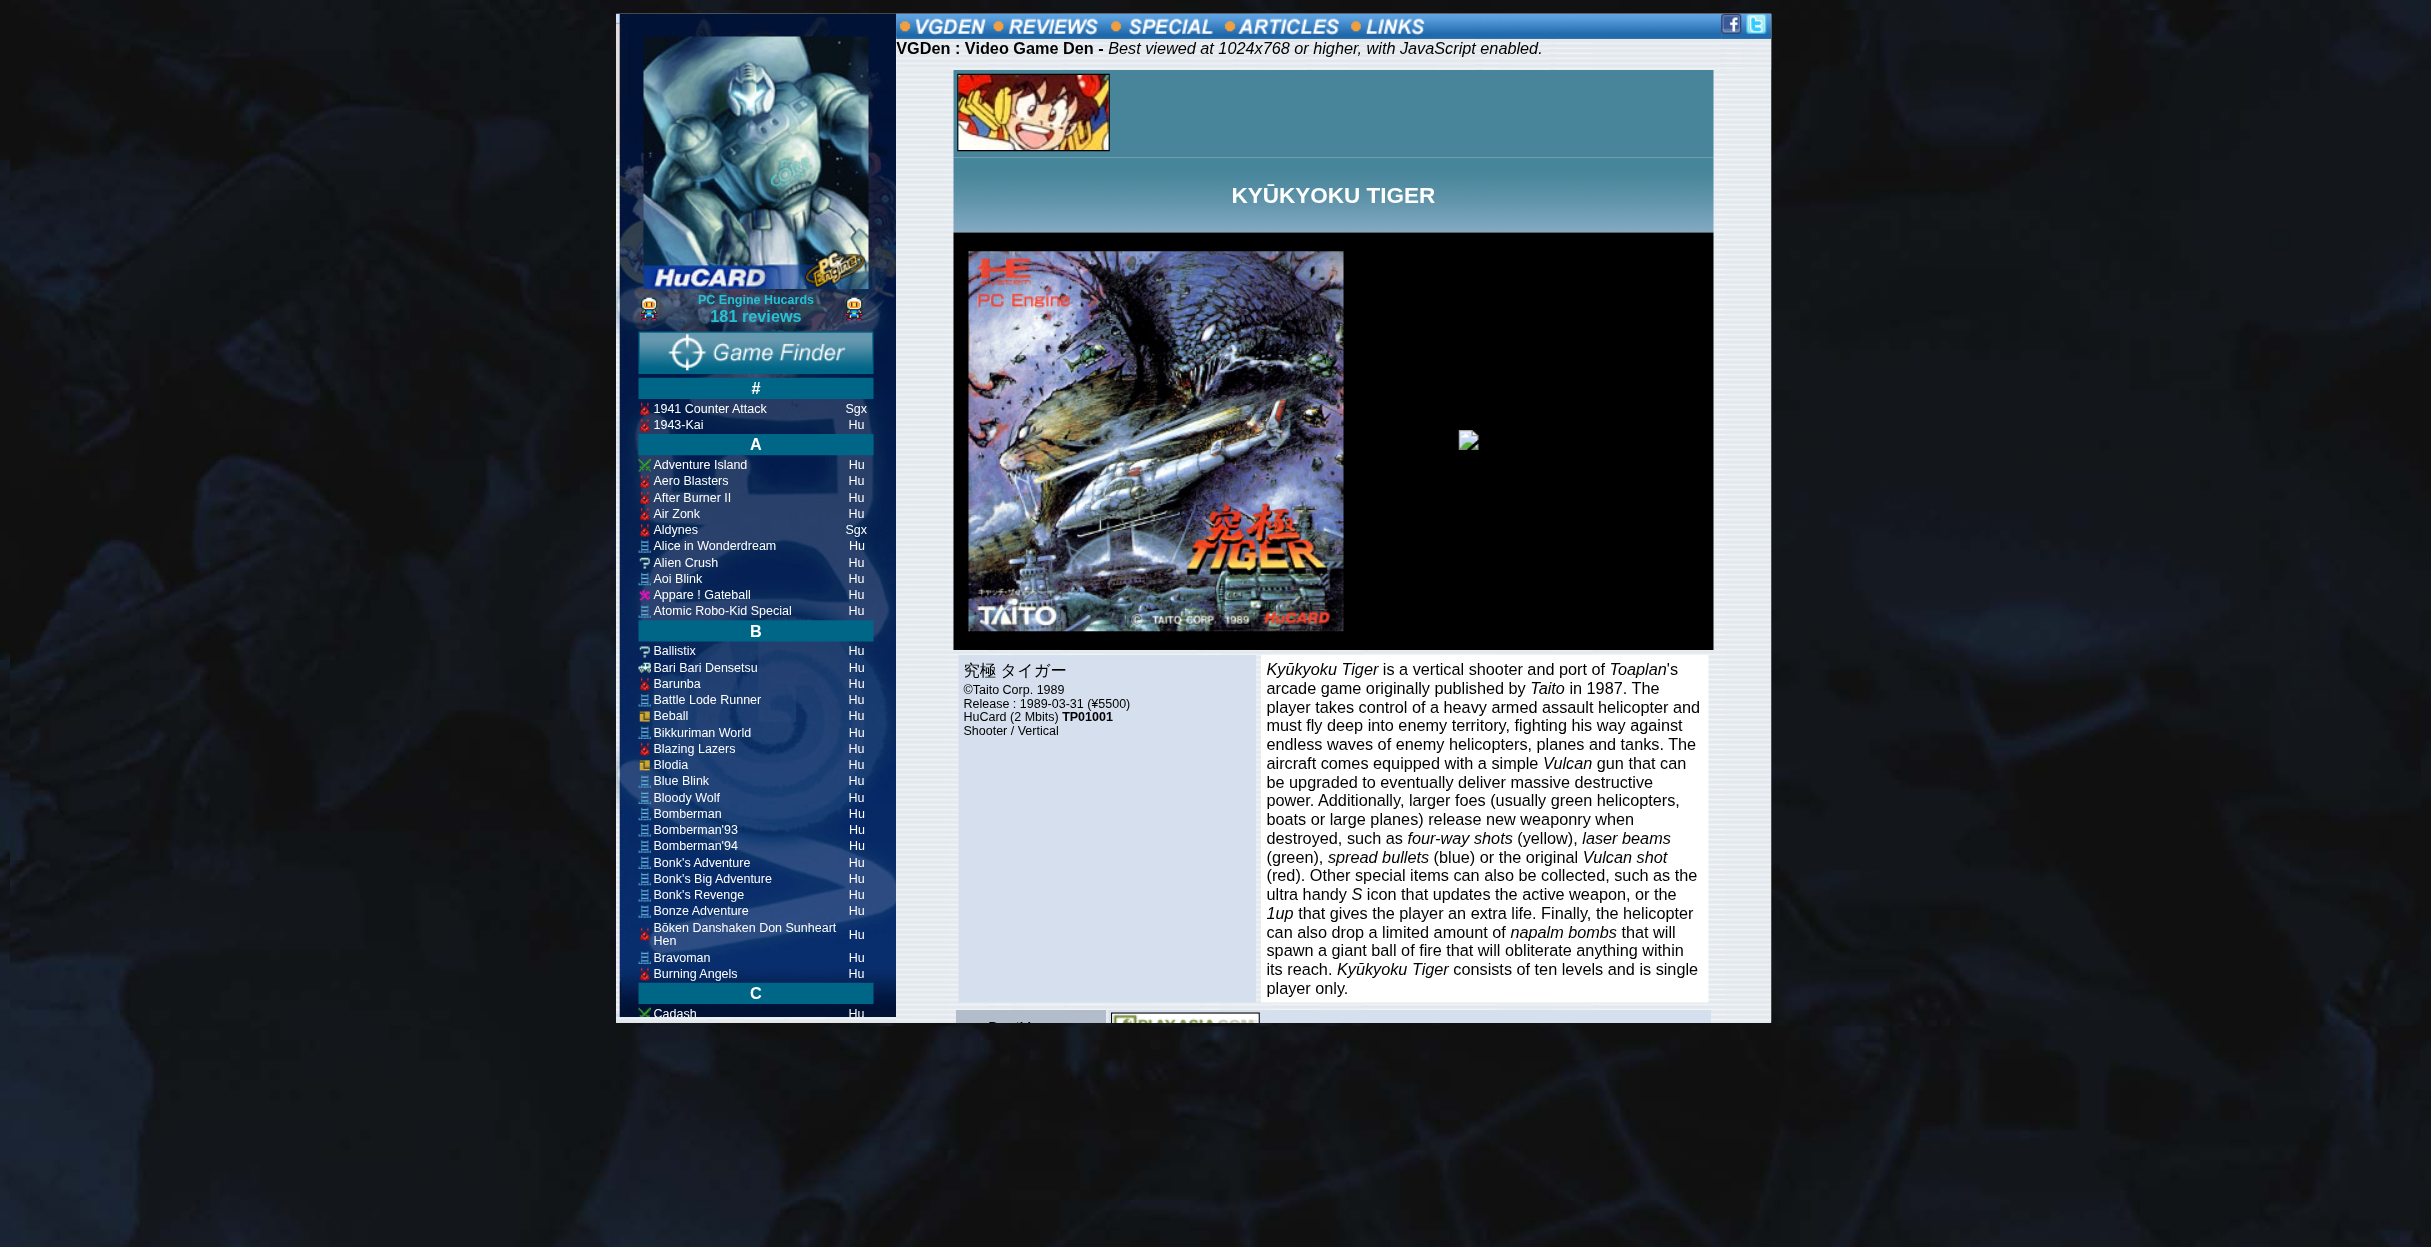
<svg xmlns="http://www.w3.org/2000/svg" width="2431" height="1247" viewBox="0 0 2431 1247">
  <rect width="100%" height="100%" fill="#ffffff"/>
  <image x="0" y="0" width="2431" height="1247" href="img1.png"/>
  <image x="10" y="10" width="2411" height="1017" href="img2.png"/>
  <rect x="616" y="1017" width="280" height="6" fill="#dddddd"/>
  <image x="616" y="13" width="1156" height="1010" href="img3.png"/>
  <image x="616" y="14" width="280" height="1003" href="img4.png"/>
  <image x="896" y="13" width="876" height="57" href="img5.png"/>
  <image x="896" y="70" width="875" height="953" href="img6.png"/>
</svg>
